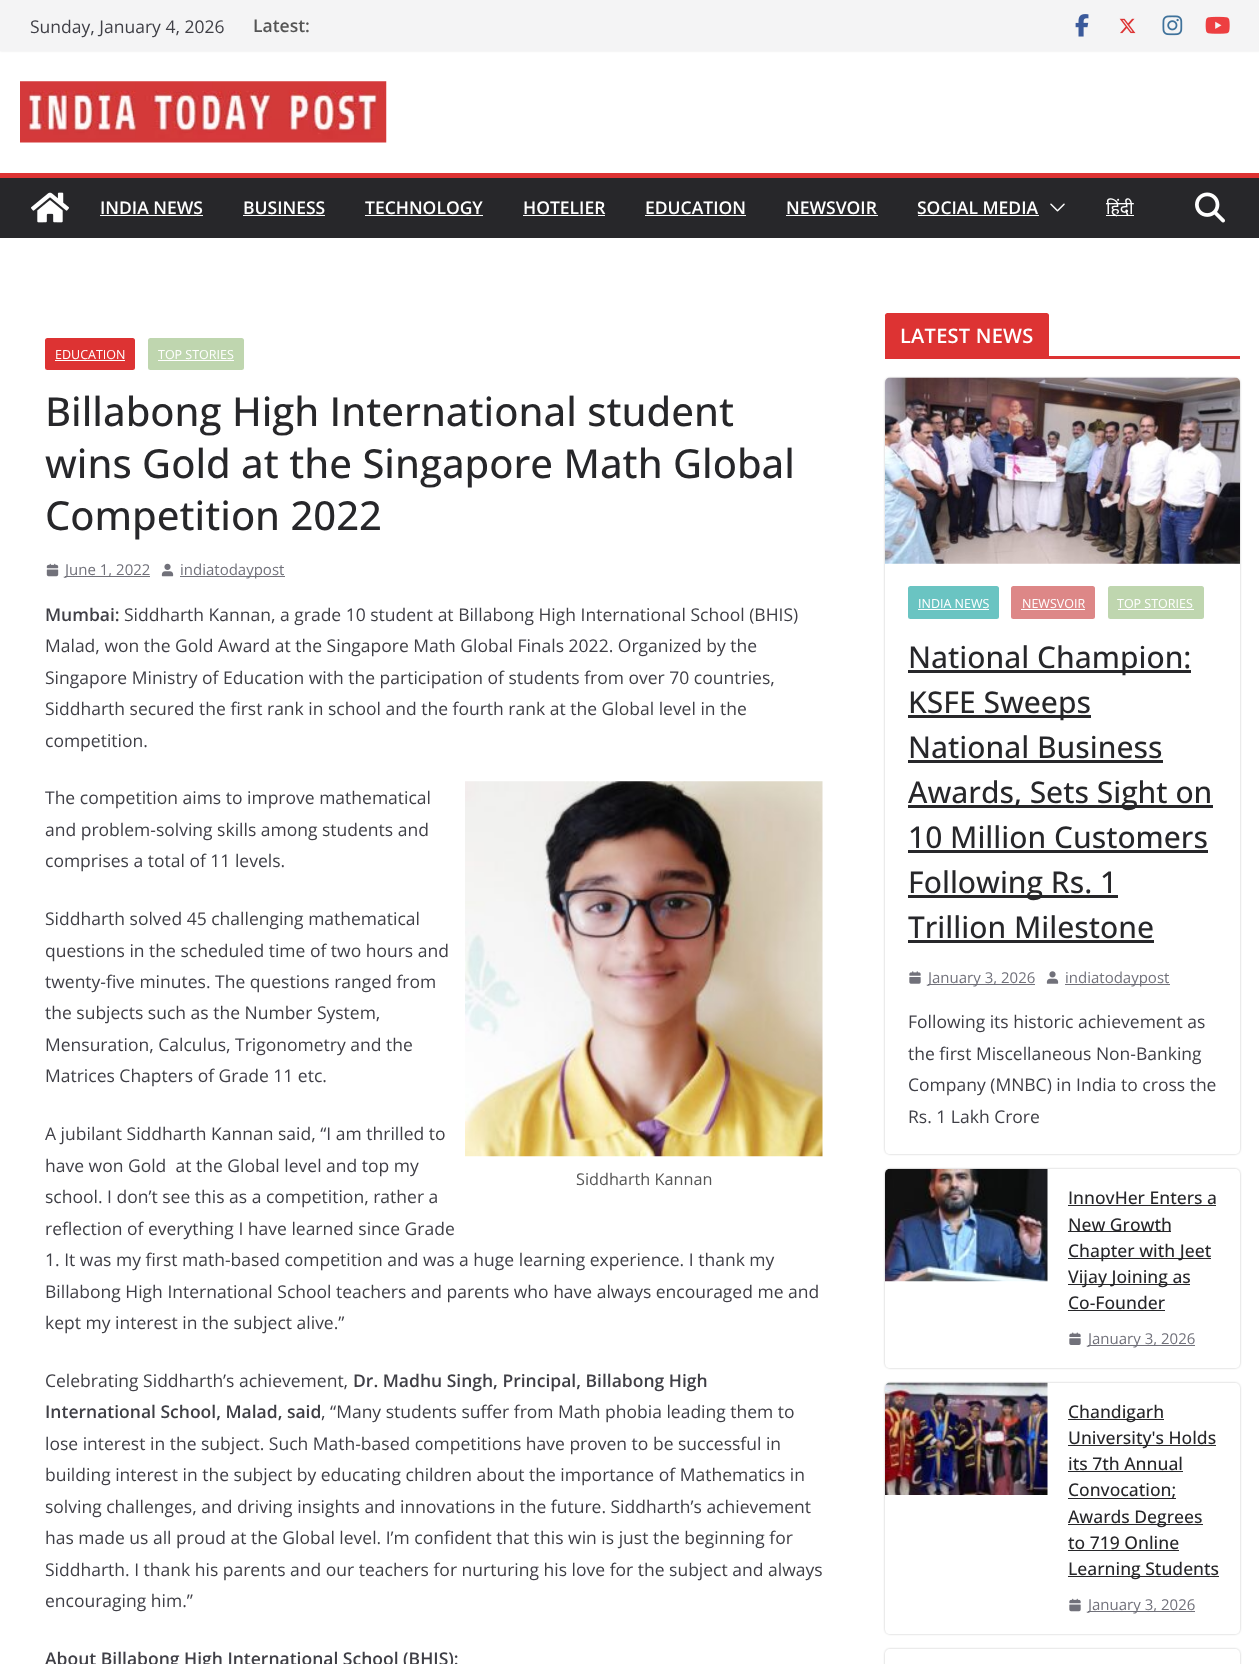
<svg xmlns="http://www.w3.org/2000/svg" width="1259" height="1664" viewBox="0 0 1259 1664">
  <defs>
    <filter id="blur1" x="-50%" y="-200%" width="200%" height="500%"><feGaussianBlur stdDeviation="1"/></filter>
    <clipPath id="clip1"><path d="M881 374H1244V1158H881ZM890 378H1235C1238 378 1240 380 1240 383V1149C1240 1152 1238 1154 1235 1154H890C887 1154 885 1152 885 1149V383C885 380 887 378 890 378Z" clip-rule="evenodd"/></clipPath>
    <clipPath id="clip2"><path d="M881 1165H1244V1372H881ZM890 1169H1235C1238 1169 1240 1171 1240 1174V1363C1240 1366 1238 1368 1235 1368H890C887 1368 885 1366 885 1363V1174C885 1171 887 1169 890 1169Z" clip-rule="evenodd"/></clipPath>
    <clipPath id="clip3"><path d="M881 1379H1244V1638H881ZM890 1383H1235C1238 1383 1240 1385 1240 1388V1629C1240 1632 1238 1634 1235 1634H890C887 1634 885 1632 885 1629V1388C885 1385 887 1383 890 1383Z" clip-rule="evenodd"/></clipPath>
    <clipPath id="clip4"><path d="M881 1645H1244V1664H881ZM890 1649H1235C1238 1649 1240 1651 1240 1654V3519C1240 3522 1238 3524 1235 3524H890C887 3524 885 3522 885 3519V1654C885 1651 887 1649 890 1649Z" clip-rule="evenodd"/></clipPath>
  </defs>
  <rect width="100%" height="100%" fill="#ffffff"/>
  <rect x="0" y="0" width="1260" height="51" fill="#000000" fill-opacity="0.1" filter="url(#blur1)"/>
  <rect x="0" y="0" width="1259" height="51" fill="#f4f4f5"/>
  <text x="30" y="33" font-family="Open Sans" font-size="17.5" fill="#3f3f46">Sunday, January 4, 2026</text>
  <text x="253" y="32" font-family="Open Sans" font-size="17.5" font-weight="600" fill="#555555">Latest:</text>
  <image x="1075" y="14" width="14" height="23" href="img1.png"/>
  <image x="1119" y="18" width="17" height="16" href="img2.png"/>
  <image x="1162" y="15" width="21" height="21" href="img3.png"/>
  <image x="1205" y="16" width="25" height="18" href="img4.png"/>
  <image x="20" y="81" width="367" height="62" href="img5.png"/>
  <rect x="0" y="178" width="1259" height="60" fill="#27272a"/>
  <rect x="0" y="173" width="1259" height="5" fill="#dd3333"/>
  <image x="31" y="192" width="38" height="31" href="img6.png"/>
  <text x="100" y="214" font-family="Open Sans" font-size="17.5" font-weight="600" fill="#ffffff">INDIA NEWS</text>
  <rect x="100" y="215" width="103" height="1" fill="#ffffff"/>
  <text x="243" y="214" font-family="Open Sans" font-size="17.5" font-weight="600" fill="#ffffff">BUSINESS</text>
  <rect x="243" y="215" width="82" height="1" fill="#ffffff"/>
  <text x="365" y="214" font-family="Open Sans" font-size="17.5" font-weight="600" fill="#ffffff">TECHNOLOGY</text>
  <rect x="365" y="215" width="118" height="1" fill="#ffffff"/>
  <text x="523" y="214" font-family="Open Sans" font-size="17.5" font-weight="600" fill="#ffffff">HOTELIER</text>
  <rect x="523" y="215" width="82" height="1" fill="#ffffff"/>
  <text x="645" y="214" font-family="Open Sans" font-size="17.5" font-weight="600" fill="#ffffff">EDUCATION</text>
  <rect x="645" y="215" width="101" height="1" fill="#ffffff"/>
  <text x="786" y="214" font-family="Open Sans" font-size="17.5" font-weight="600" fill="#ffffff">NEWSVOIR</text>
  <rect x="786" y="215" width="92" height="1" fill="#ffffff"/>
  <text x="917" y="214" font-family="Open Sans" font-size="17.5" font-weight="600" fill="#ffffff">SOCIAL MEDIA</text>
  <rect x="918" y="215" width="121" height="1" fill="#ffffff"/>
  <image x="1050" y="203" width="15" height="9" href="img7.png"/>
  <rect x="1106" y="215" width="28" height="1" fill="#ffffff"/>
  <text x="1106" y="214" font-family="Noto Sans" font-size="17.5" fill="#ffffff">हिंदी</text>
  <image x="1195" y="192" width="30" height="31" href="img8.png"/>
  <rect x="45" y="338" width="90" height="32" rx="2.5" fill="#dd3333"/>
  <text x="55" y="359" font-family="Open Sans" font-size="12.5" fill="#ffffff">EDUCATION</text>
  <rect x="55" y="360" width="70" height="1" fill="#ffffff"/>
  <rect x="148" y="338" width="96" height="32" rx="2.5" fill="#bfd6af"/>
  <text x="158" y="359" font-family="Open Sans" font-size="12.5" fill="#ffffff">TOP STORIES</text>
  <rect x="158" y="360" width="76" height="1" fill="#ffffff"/>
  <text x="45" y="426" font-family="Open Sans" font-size="40" font-weight="500" fill="#27272a">Billabong High International student</text>
  <text x="45" y="478" font-family="Open Sans" font-size="40" font-weight="500" fill="#27272a">wins Gold at the Singapore Math Global</text>
  <text x="45" y="530" font-family="Open Sans" font-size="40" font-weight="500" fill="#27272a">Competition 2022</text>
  <image x="46" y="563" width="13" height="14" href="img9.png"/>
  <rect x="65" y="576" width="85" height="1" fill="#71717a"/>
  <text x="65" y="575" font-family="Open Sans" font-size="15" fill="#71717a">June 1, 2022</text>
  <image x="161" y="563" width="13" height="14" href="img10.png"/>
  <rect x="180" y="576" width="105" height="1" fill="#71717a"/>
  <text x="180" y="575" font-family="Open Sans" font-size="15" fill="#71717a">indiatodaypost</text>
  <text x="45" y="621" font-family="Open Sans" font-size="17.5" font-weight="600" fill="#3f3f46">Mumbai:</text>
  <text x="124" y="621" font-family="Open Sans" font-size="17.5" fill="#3f3f46">Siddharth Kannan, a grade 10 student at Billabong High International School (BHIS)</text>
  <text x="45" y="652" font-family="Open Sans" font-size="17.5" fill="#3f3f46">Malad, won the Gold Award at the Singapore Math Global Finals 2022. Organized by the</text>
  <text x="45" y="684" font-family="Open Sans" font-size="17.5" fill="#3f3f46">Singapore Ministry of Education with the participation of students from over 70 countries,</text>
  <text x="45" y="715" font-family="Open Sans" font-size="17.5" fill="#3f3f46">Siddharth secured the first rank in school and the fourth rank at the Global level in the</text>
  <text x="45" y="747" font-family="Open Sans" font-size="17.5" fill="#3f3f46">competition.</text>
  <text x="45" y="804" font-family="Open Sans" font-size="17.5" fill="#3f3f46">The competition aims to improve mathematical</text>
  <text x="45" y="836" font-family="Open Sans" font-size="17.5" fill="#3f3f46">and problem-solving skills among students and</text>
  <text x="45" y="867" font-family="Open Sans" font-size="17.5" fill="#3f3f46">comprises a total of 11 levels.</text>
  <text x="45" y="925" font-family="Open Sans" font-size="17.5" fill="#3f3f46">Siddharth solved 45 challenging mathematical</text>
  <text x="45" y="957" font-family="Open Sans" font-size="17.5" fill="#3f3f46">questions in the scheduled time of two hours and</text>
  <text x="45" y="988" font-family="Open Sans" font-size="17.5" fill="#3f3f46">twenty-five minutes. The questions ranged from</text>
  <text x="45" y="1019" font-family="Open Sans" font-size="17.5" fill="#3f3f46">the subjects such as the Number System,</text>
  <text x="45" y="1051" font-family="Open Sans" font-size="17.5" fill="#3f3f46">Mensuration, Calculus, Trigonometry and the</text>
  <text x="45" y="1082" font-family="Open Sans" font-size="17.5" fill="#3f3f46">Matrices Chapters of Grade 11 etc.</text>
  <text x="45" y="1140" font-family="Open Sans" font-size="17.5" fill="#3f3f46">A jubilant Siddharth Kannan said, “I am thrilled to</text>
  <text x="45" y="1172" font-family="Open Sans" font-size="17.5" fill="#3f3f46" xml:space="preserve">have won Gold  at the Global level and top my</text>
  <text x="45" y="1203" font-family="Open Sans" font-size="17.5" fill="#3f3f46">school. I don’t see this as a competition, rather a</text>
  <text x="45" y="1235" font-family="Open Sans" font-size="17.5" fill="#3f3f46">reflection of everything I have learned since Grade</text>
  <text x="45" y="1266" font-family="Open Sans" font-size="17.5" fill="#3f3f46">1. It was my first math-based competition and was a huge learning experience. I thank my</text>
  <text x="45" y="1298" font-family="Open Sans" font-size="17.5" fill="#3f3f46">Billabong High International School teachers and parents who have always encouraged me and</text>
  <text x="45" y="1329" font-family="Open Sans" font-size="17.5" fill="#3f3f46">kept my interest in the subject alive.”</text>
  <image x="465" y="781" width="358" height="376" href="img11.png"/>
  <text x="576" y="1185" font-family="Open Sans" font-size="16.25" fill="#555555">Siddharth Kannan</text>
  <text x="45" y="1387" font-family="Open Sans" font-size="17.5" fill="#3f3f46">Celebrating Siddharth’s achievement,</text>
  <text x="353" y="1387" font-family="Open Sans" font-size="17.5" font-weight="600" fill="#3f3f46">Dr. Madhu Singh, Principal, Billabong High</text>
  <text x="45" y="1418" font-family="Open Sans" font-size="17.5" font-weight="600" fill="#3f3f46">International School, Malad, said</text>
  <text x="321" y="1418" font-family="Open Sans" font-size="17.5" fill="#3f3f46">, “Many students suffer from Math phobia leading them to</text>
  <text x="45" y="1450" font-family="Open Sans" font-size="17.5" fill="#3f3f46">lose interest in the subject. Such Math-based competitions have proven to be successful in</text>
  <text x="45" y="1481" font-family="Open Sans" font-size="17.5" fill="#3f3f46">building interest in the subject by educating children about the importance of Mathematics in</text>
  <text x="45" y="1513" font-family="Open Sans" font-size="17.5" fill="#3f3f46">solving challenges, and driving insights and innovations in the future. Siddharth’s achievement</text>
  <text x="45" y="1544" font-family="Open Sans" font-size="17.5" fill="#3f3f46">has made us all proud at the Global level. I’m confident that this win is just the beginning for</text>
  <text x="45" y="1576" font-family="Open Sans" font-size="17.5" fill="#3f3f46">Siddharth. I thank his parents and our teachers for nurturing his love for the subject and always</text>
  <text x="45" y="1607" font-family="Open Sans" font-size="17.5" fill="#3f3f46">encouraging him.”</text>
  <text x="45" y="1665" font-family="Open Sans" font-size="17.5" font-weight="600" fill="#3f3f46">About Billabong High International School (BHIS):</text>
  <rect x="885" y="356" width="355" height="3" fill="#dd3333"/>
  <path d="M887.5 313H1046.5C1048 313 1049 314 1049 315.5V356H885V315.5C885 314 886 313 887.5 313Z" fill="#dd3333"/>
  <text x="900" y="343" font-family="Open Sans" font-size="20" font-weight="600" letter-spacing="0.25" fill="#ffffff">LATEST NEWS</text>
  <g clip-path="url(#clip1)">
    <rect x="885" y="378" width="355" height="776" rx="5" fill="#000000" fill-opacity="0.24" filter="url(#blur1)"/>
  </g>
  <image x="885" y="377" width="355" height="187" href="img12.png"/>
  <rect x="908" y="586" width="91" height="33" rx="2.5" fill="#6ac4c2"/>
  <text x="918" y="608" font-family="Open Sans" font-size="12.5" fill="#ffffff">INDIA NEWS</text>
  <rect x="918" y="609" width="71" height="1" fill="#ffffff"/>
  <rect x="1011" y="586" width="84" height="33" rx="2.5" fill="#dd8787"/>
  <text x="1022" y="608" font-family="Open Sans" font-size="12.5" fill="#ffffff">NEWSVOIR</text>
  <rect x="1021" y="609" width="64" height="1" fill="#ffffff"/>
  <rect x="1108" y="586" width="96" height="33" rx="2.5" fill="#bfd6af"/>
  <text x="1117" y="608" font-family="Open Sans" font-size="12.5" fill="#ffffff">TOP STORIES</text>
  <rect x="1118" y="609" width="76" height="1" fill="#ffffff"/>
  <rect x="908" y="670" width="283" height="3" fill="#27272a"/>
  <text x="908" y="668" font-family="Open Sans" font-size="30" font-weight="500" fill="#27272a">National Champion:</text>
  <rect x="908" y="715" width="183" height="3" fill="#27272a"/>
  <text x="908" y="713" font-family="Open Sans" font-size="30" font-weight="500" fill="#27272a">KSFE Sweeps</text>
  <text x="908" y="758" font-family="Open Sans" font-size="30" font-weight="500" fill="#27272a">National Business</text>
  <rect x="908" y="760" width="255" height="3" fill="#27272a"/>
  <rect x="908" y="805" width="305" height="3" fill="#27272a"/>
  <text x="908" y="803" font-family="Open Sans" font-size="30" font-weight="500" fill="#27272a">Awards, Sets Sight on</text>
  <text x="908" y="848" font-family="Open Sans" font-size="30" font-weight="500" fill="#27272a">10 Million Customers</text>
  <rect x="908" y="850" width="300" height="3" fill="#27272a"/>
  <rect x="908" y="895" width="210" height="3" fill="#27272a"/>
  <text x="908" y="893" font-family="Open Sans" font-size="30" font-weight="500" fill="#27272a">Following Rs. 1</text>
  <text x="908" y="938" font-family="Open Sans" font-size="30" font-weight="500" fill="#27272a">Trillion Milestone</text>
  <rect x="908" y="940" width="246" height="3" fill="#27272a"/>
  <image x="909" y="971" width="12" height="13" href="img13.png"/>
  <rect x="928" y="984" width="107" height="1" fill="#71717a"/>
  <text x="928" y="983" font-family="Open Sans" font-size="15" fill="#71717a">January 3, 2026</text>
  <image x="1046" y="971" width="13" height="13" href="img14.png"/>
  <rect x="1065" y="984" width="105" height="1" fill="#71717a"/>
  <text x="1065" y="983" font-family="Open Sans" font-size="15" fill="#71717a">indiatodaypost</text>
  <text x="908" y="1028" font-family="Open Sans" font-size="17.5" fill="#3f3f46">Following its historic achievement as</text>
  <text x="908" y="1060" font-family="Open Sans" font-size="17.5" fill="#3f3f46">the first Miscellaneous Non-Banking</text>
  <text x="908" y="1091" font-family="Open Sans" font-size="17.5" fill="#3f3f46">Company (MNBC) in India to cross the</text>
  <text x="908" y="1123" font-family="Open Sans" font-size="17.5" fill="#3f3f46">Rs. 1 Lakh Crore</text>
  <g clip-path="url(#clip2)">
    <rect x="885" y="1169" width="355" height="199" rx="5" fill="#000000" fill-opacity="0.24" filter="url(#blur1)"/>
  </g>
  <image x="885" y="1168" width="163" height="114" href="img15.png"/>
  <text x="1068" y="1204" font-family="Open Sans" font-size="17.5" font-weight="500" fill="#27272a">InnovHer Enters a</text>
  <rect x="1068" y="1205" width="148" height="1" fill="#27272a"/>
  <rect x="1068" y="1231" width="103" height="1" fill="#27272a"/>
  <text x="1068" y="1231" font-family="Open Sans" font-size="17.5" font-weight="500" fill="#27272a">New Growth</text>
  <rect x="1068" y="1258" width="143" height="1" fill="#27272a"/>
  <text x="1068" y="1257" font-family="Open Sans" font-size="17.5" font-weight="500" fill="#27272a">Chapter with Jeet</text>
  <rect x="1068" y="1284" width="122" height="1" fill="#27272a"/>
  <text x="1068" y="1283" font-family="Open Sans" font-size="17.5" font-weight="500" fill="#27272a">Vijay Joining as</text>
  <text x="1068" y="1309" font-family="Open Sans" font-size="17.5" font-weight="500" fill="#27272a">Co-Founder</text>
  <rect x="1068" y="1310" width="97" height="1" fill="#27272a"/>
  <image x="1069" y="1332" width="12" height="13" href="img16.png"/>
  <rect x="1088" y="1345" width="107" height="1" fill="#71717a"/>
  <text x="1088" y="1344" font-family="Open Sans" font-size="15" fill="#71717a">January 3, 2026</text>
  <g clip-path="url(#clip3)">
    <rect x="885" y="1383" width="355" height="251" rx="5" fill="#000000" fill-opacity="0.24" filter="url(#blur1)"/>
  </g>
  <image x="885" y="1382" width="163" height="113" href="img17.png"/>
  <rect x="1068" y="1419" width="96" height="1" fill="#27272a"/>
  <text x="1068" y="1418" font-family="Open Sans" font-size="17.5" font-weight="500" fill="#27272a">Chandigarh</text>
  <rect x="1068" y="1445" width="148" height="1" fill="#27272a"/>
  <text x="1068" y="1444" font-family="Open Sans" font-size="17.5" font-weight="500" fill="#27272a">University's Holds</text>
  <text x="1068" y="1470" font-family="Open Sans" font-size="17.5" font-weight="500" fill="#27272a">its 7th Annual</text>
  <rect x="1068" y="1471" width="115" height="1" fill="#27272a"/>
  <rect x="1068" y="1498" width="108" height="1" fill="#27272a"/>
  <text x="1068" y="1496" font-family="Open Sans" font-size="17.5" font-weight="500" fill="#27272a">Convocation;</text>
  <rect x="1068" y="1524" width="135" height="1" fill="#27272a"/>
  <text x="1068" y="1523" font-family="Open Sans" font-size="17.5" font-weight="500" fill="#27272a">Awards Degrees</text>
  <text x="1068" y="1549" font-family="Open Sans" font-size="17.5" font-weight="500" fill="#27272a">to 719 Online</text>
  <rect x="1068" y="1550" width="111" height="1" fill="#27272a"/>
  <rect x="1068" y="1576" width="151" height="1" fill="#27272a"/>
  <text x="1068" y="1575" font-family="Open Sans" font-size="17.5" font-weight="500" fill="#27272a">Learning Students</text>
  <image x="1069" y="1598" width="12" height="14" href="img18.png"/>
  <rect x="1088" y="1611" width="107" height="1" fill="#71717a"/>
  <text x="1088" y="1610" font-family="Open Sans" font-size="15" fill="#71717a">January 3, 2026</text>
  <g clip-path="url(#clip4)">
    <rect x="885" y="1649" width="355" height="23" rx="5" fill="#000000" fill-opacity="0.24" filter="url(#blur1)"/>
  </g>
</svg>
